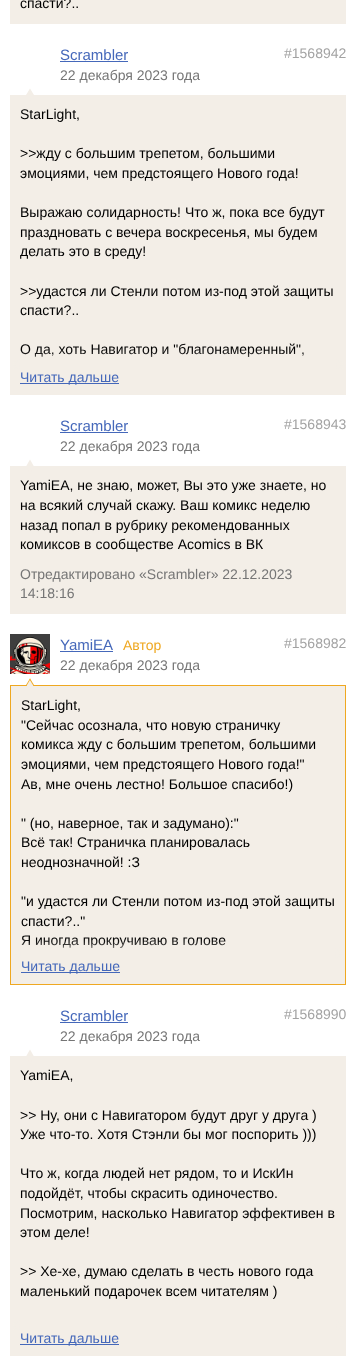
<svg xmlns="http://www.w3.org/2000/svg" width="356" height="1370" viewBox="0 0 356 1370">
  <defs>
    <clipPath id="clip1"><rect x="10" y="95" width="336" height="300"/></clipPath>
    <filter id="blur1" x="-50%" y="-200%" width="200%" height="500%"><feGaussianBlur stdDeviation="5"/></filter>
    <clipPath id="clip2"><rect x="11" y="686" width="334" height="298"/></clipPath>
    <clipPath id="clip3"><rect x="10" y="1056" width="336" height="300"/></clipPath>
  </defs>
  <rect width="100%" height="100%" fill="#ffffff"/>
  <rect x="10" y="0" width="336" height="24" fill="#f3eee7"/>
  <text x="20" y="8" font-family="Liberation Sans" font-size="14" fill="#000000">спасти?..</text>
  <text x="60" y="60" font-family="Liberation Sans" font-size="15" fill="#4568ba">Scrambler</text>
  <rect x="60" y="61" width="68" height="1" fill="#4568ba"/>
  <text x="284" y="58" font-family="Liberation Sans" font-size="14" fill="#a3a3a3">#1568942</text>
  <text x="60" y="80" font-family="Liberation Sans" font-size="14" fill="#757575">22 декабря 2023 года</text>
  <rect x="10" y="95" width="336" height="274" fill="#f3eee7"/>
  <path d="M30 88.5L34 95L30 102L26 95Z" fill="#f3eee7"/>
  <text x="20" y="119" font-family="Liberation Sans" font-size="14" fill="#000000">StarLight,</text>
  <text x="20" y="158" font-family="Liberation Sans" font-size="14" fill="#000000">&gt;&gt;жду с большим трепетом, большими</text>
  <text x="20" y="178" font-family="Liberation Sans" font-size="14" fill="#000000">эмоциями, чем предстоящего Нового года!</text>
  <text x="20" y="217" font-family="Liberation Sans" font-size="14" fill="#000000">Выражаю солидарность! Что ж, пока все будут</text>
  <text x="20" y="237" font-family="Liberation Sans" font-size="14" fill="#000000">праздновать с вечера воскресенья, мы будем</text>
  <text x="20" y="256" font-family="Liberation Sans" font-size="14" fill="#000000">делать это в среду!</text>
  <text x="20" y="296" font-family="Liberation Sans" font-size="14" fill="#000000">&gt;&gt;удастся ли Стенли потом из-под этой защиты</text>
  <text x="20" y="315" font-family="Liberation Sans" font-size="14" fill="#000000">спасти?..</text>
  <text x="20" y="354" font-family="Liberation Sans" font-size="14" fill="#000000">О да, хоть Навигатор и "благонамеренный",</text>
  <g clip-path="url(#clip1)">
    <rect x="10" y="359" width="336" height="26" fill="#f3eee7" filter="url(#blur1)"/>
  </g>
  <rect x="10" y="369" width="336" height="26" fill="#f3eee7"/>
  <rect x="20" y="383" width="99" height="1" fill="#4568ba"/>
  <text x="20" y="382" font-family="Liberation Sans" font-size="14" fill="#4568ba">Читать дальше</text>
  <text x="60" y="431" font-family="Liberation Sans" font-size="15" fill="#4568ba">Scrambler</text>
  <rect x="60" y="432" width="68" height="1" fill="#4568ba"/>
  <text x="284" y="429" font-family="Liberation Sans" font-size="14" fill="#a3a3a3">#1568943</text>
  <text x="60" y="451" font-family="Liberation Sans" font-size="14" fill="#757575">22 декабря 2023 года</text>
  <rect x="10" y="466" width="336" height="148" fill="#f3eee7"/>
  <path d="M30 459.5L34 466.5L30 473.5L26 466.5Z" fill="#f3eee7"/>
  <text x="20" y="490" font-family="Liberation Sans" font-size="14" fill="#000000">YamiEA, не знаю, может, Вы это уже знаете, но</text>
  <text x="20" y="510" font-family="Liberation Sans" font-size="14" fill="#000000">на всякий случай скажу. Ваш комикс неделю</text>
  <text x="20" y="530" font-family="Liberation Sans" font-size="14" fill="#000000">назад попал в рубрику рекомендованных</text>
  <text x="20" y="549" font-family="Liberation Sans" font-size="14" fill="#000000">комиксов в сообществе Acomics в ВК</text>
  <text x="20" y="579" font-family="Liberation Sans" font-size="14" fill="#757575">Отредактировано «Scrambler» 22.12.2023</text>
  <text x="20" y="598" font-family="Liberation Sans" font-size="14" fill="#757575">14:18:16</text>
  <image x="10" y="634" width="40" height="40" href="img1.png"/>
  <rect x="11" y="686" width="334" height="272" fill="#f3eee7"/>
  <rect x="10.5" y="685.5" width="335" height="299" fill="none" stroke="#efa821"/>
  <path d="M30 680L33.5 686L30 692L26.5 686Z" fill="#f3eee7"/>
  <path d="M30 678.5L34 685L33.5 686L29.5 679.5Z" fill="#efa821"/>
  <path d="M30 678.5L30.5 679L26.5 686L26 685Z" fill="#efa821"/>
  <text x="60" y="650" font-family="Liberation Sans" font-size="15" fill="#4568ba">YamiEA</text>
  <rect x="60" y="651" width="53" height="1" fill="#4568ba"/>
  <text x="123" y="650" font-family="Liberation Sans" font-size="14" fill="#efa821">Автор</text>
  <text x="284" y="648" font-family="Liberation Sans" font-size="14" fill="#a3a3a3">#1568982</text>
  <text x="60" y="670" font-family="Liberation Sans" font-size="14" fill="#757575">22 декабря 2023 года</text>
  <text x="21" y="710" font-family="Liberation Sans" font-size="14" fill="#000000">StarLight,</text>
  <text x="21" y="730" font-family="Liberation Sans" font-size="14" fill="#000000">"Сейчас осознала, что новую страничку</text>
  <text x="21" y="749" font-family="Liberation Sans" font-size="14" fill="#000000">комикса жду с большим трепетом, большими</text>
  <text x="21" y="769" font-family="Liberation Sans" font-size="14" fill="#000000">эмоциями, чем предстоящего Нового года!"</text>
  <text x="21" y="789" font-family="Liberation Sans" font-size="14" fill="#000000">Ав, мне очень лестно! Большое спасибо!)</text>
  <text x="21" y="828" font-family="Liberation Sans" font-size="14" fill="#000000">" (но, наверное, так и задумано):"</text>
  <text x="21" y="847" font-family="Liberation Sans" font-size="14" fill="#000000">Всё так! Страничка планировалась</text>
  <text x="21" y="867" font-family="Liberation Sans" font-size="14" fill="#000000">неоднозначной! :З</text>
  <text x="21" y="906" font-family="Liberation Sans" font-size="14" fill="#000000">"и удастся ли Стенли потом из-под этой защиты</text>
  <text x="21" y="926" font-family="Liberation Sans" font-size="14" fill="#000000">спасти?.."</text>
  <text x="21" y="945" font-family="Liberation Sans" font-size="14" fill="#000000">Я иногда прокручиваю в голове</text>
  <g clip-path="url(#clip2)">
    <rect x="11" y="948" width="334" height="26" fill="#f3eee7" filter="url(#blur1)"/>
  </g>
  <rect x="11" y="958" width="334" height="26" fill="#f3eee7"/>
  <rect x="21" y="972" width="99" height="1" fill="#4568ba"/>
  <text x="21" y="971" font-family="Liberation Sans" font-size="14" fill="#4568ba">Читать дальше</text>
  <text x="60" y="1021" font-family="Liberation Sans" font-size="15" fill="#4568ba">Scrambler</text>
  <rect x="60" y="1022" width="68" height="1" fill="#4568ba"/>
  <text x="284" y="1019" font-family="Liberation Sans" font-size="14" fill="#a3a3a3">#1568990</text>
  <text x="60" y="1041" font-family="Liberation Sans" font-size="14" fill="#757575">22 декабря 2023 года</text>
  <rect x="10" y="1056" width="336" height="274" fill="#f3eee7"/>
  <path d="M30 1049.5L34 1056.5L30 1063.5L26 1056.5Z" fill="#f3eee7"/>
  <text x="20" y="1080" font-family="Liberation Sans" font-size="14" fill="#000000">YamiEA,</text>
  <text x="20" y="1120" font-family="Liberation Sans" font-size="14" fill="#000000">&gt;&gt; Ну, они с Навигатором будут друг у друга )</text>
  <text x="20" y="1139" font-family="Liberation Sans" font-size="14" fill="#000000">Уже что-то. Хотя Стэнли бы мог поспорить )))</text>
  <text x="20" y="1178" font-family="Liberation Sans" font-size="14" fill="#000000">Что ж, когда людей нет рядом, то и ИскИн</text>
  <text x="20" y="1198" font-family="Liberation Sans" font-size="14" fill="#000000">подойдёт, чтобы скрасить одиночество.</text>
  <text x="20" y="1218" font-family="Liberation Sans" font-size="14" fill="#000000">Посмотрим, насколько Навигатор эффективен в</text>
  <text x="20" y="1237" font-family="Liberation Sans" font-size="14" fill="#000000">этом деле!</text>
  <text x="20" y="1276" font-family="Liberation Sans" font-size="14" fill="#000000">&gt;&gt; Хе-хе, думаю сделать в честь нового года</text>
  <text x="20" y="1296" font-family="Liberation Sans" font-size="14" fill="#000000">маленький подарочек всем читателям )</text>
  <g clip-path="url(#clip3)">
    <rect x="10" y="1320" width="336" height="26" fill="#f3eee7" filter="url(#blur1)"/>
  </g>
  <rect x="10" y="1330" width="336" height="26" fill="#f3eee7"/>
  <rect x="20" y="1344" width="99" height="1" fill="#4568ba"/>
  <text x="20" y="1343" font-family="Liberation Sans" font-size="14" fill="#4568ba">Читать дальше</text>
</svg>
